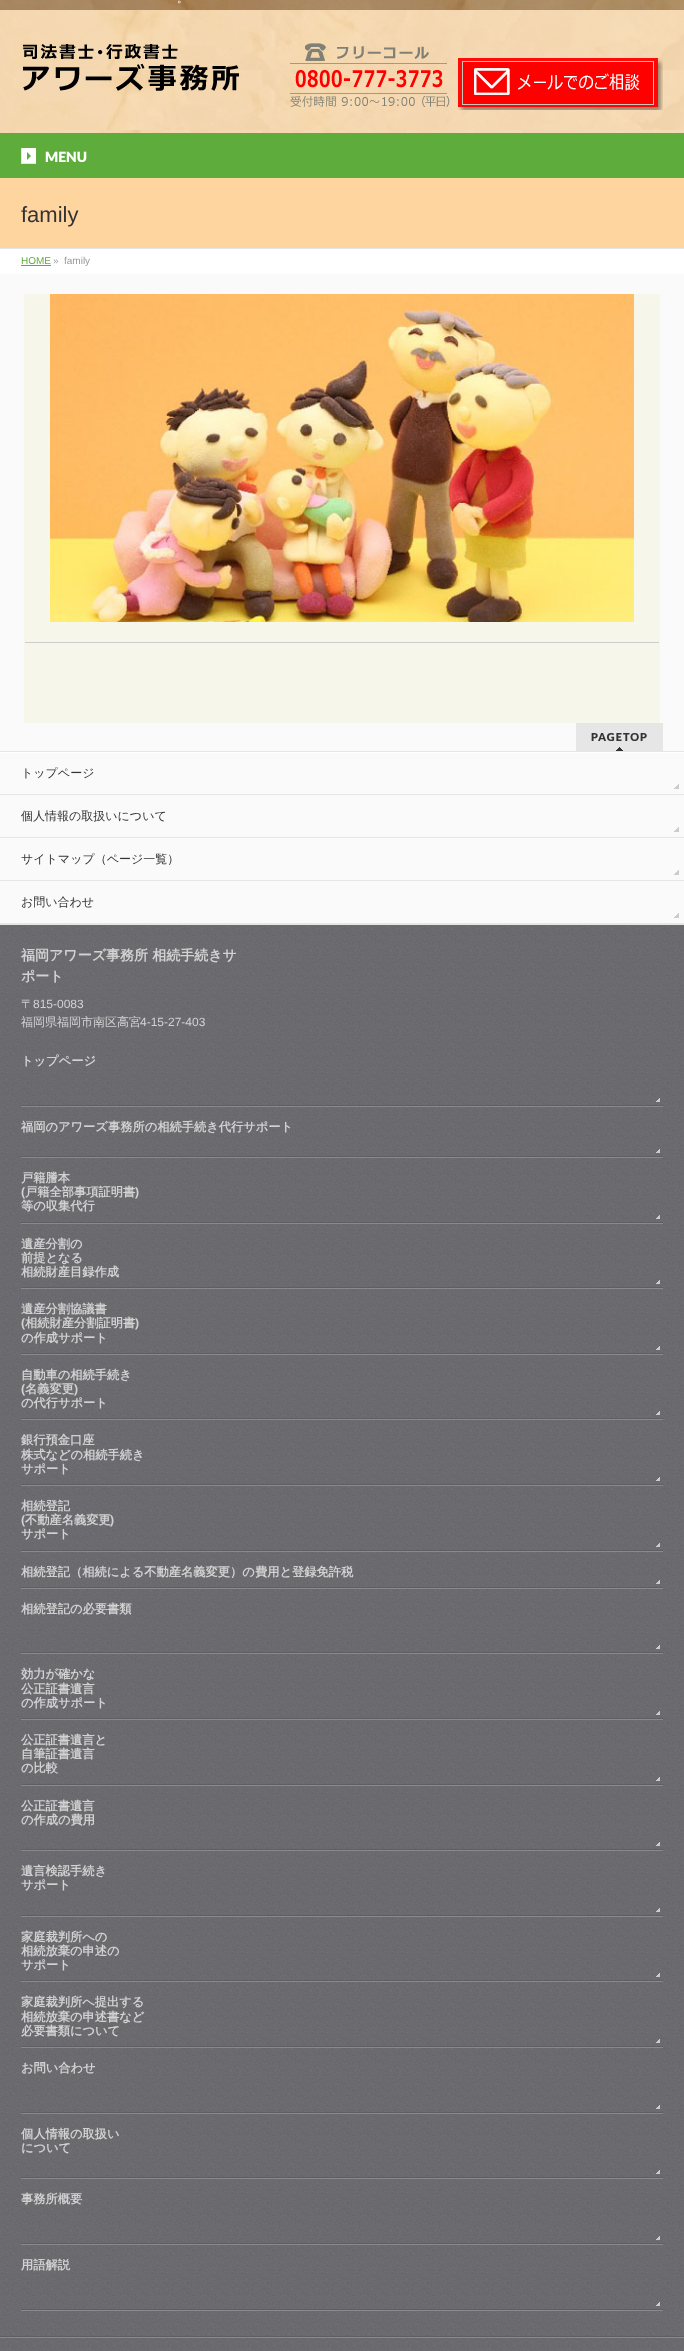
<svg xmlns="http://www.w3.org/2000/svg" width="684" height="2351" viewBox="0 0 684 2351">
  <defs>
    <clipPath id="clip1"><rect x="21" y="1425" width="642" height="59"/></clipPath>
  </defs>
  <rect width="100%" height="100%" fill="#ffffff"/>
  <image x="0" y="0" width="684" height="10" href="img1.png"/>
  <text x="177" y="2" font-family="WenQuanYi Zen Hei" font-size="11" font-weight="500" fill="#ffffff">。</text>
  <image x="0" y="10" width="684" height="123" href="img2.png"/>
  <image x="23" y="44" width="216" height="47" href="img3.png"/>
  <image x="290" y="43" width="160" height="64" href="img4.png"/>
  <image x="458" y="58" width="205" height="52" href="img5.png"/>
  <rect x="0" y="133" width="684" height="45" fill="#5ead3c"/>
  <image x="21" y="148" width="15" height="16" href="img6.png"/>
  <text x="45" y="162" font-family="Lato" font-size="14" font-weight="900" fill="#ffffff">MENU</text>
  <rect x="0" y="178" width="684" height="70" fill="#ffd59f"/>
  <rect x="0" y="248" width="684" height="1" fill="#e5e5e5"/>
  <text x="21" y="222" font-family="Liberation Sans" font-size="22" fill="#333333">family</text>
  <text x="21" y="264" font-family="Liberation Sans" font-size="10" fill="#5ead3c">HOME</text>
  <rect x="21" y="265" width="30" height="1" fill="#5ead3c"/>
  <text x="53" y="264" font-family="Liberation Sans" font-size="10" fill="#999999">»</text>
  <text x="64" y="264" font-family="Liberation Sans" font-size="10" fill="#999999">family</text>
  <rect x="0" y="274" width="684" height="477" fill="#fafafa"/>
  <rect x="24" y="294" width="636" height="429" fill="#f7f6eb"/>
  <image x="50" y="294" width="584" height="328" href="img7.png"/>
  <rect x="25" y="642" width="634" height="1" fill="#cccccc"/>
  <rect x="576" y="723" width="87" height="28" fill="#e6e6e6"/>
  <image x="616" y="747" width="7" height="4" href="img8.png"/>
  <text x="591" y="741" font-family="Lato" font-size="11" font-weight="900" letter-spacing="1" fill="#333333">PAGETOP</text>
  <rect x="0" y="753" width="684" height="170" fill="#fafafa"/>
  <rect x="0" y="751" width="684" height="1" fill="#e6e6e6"/>
  <rect x="0" y="923" width="684" height="2" fill="#e6e6e6"/>
  <image x="674" y="784" width="5" height="5" href="img9.png"/>
  <rect x="0" y="794" width="684" height="1" fill="#e6e6e6"/>
  <text x="21" y="777" font-family="WenQuanYi Zen Hei" font-size="12" font-weight="500" fill="#333333">トップページ</text>
  <image x="674" y="827" width="5" height="5" href="img9.png"/>
  <rect x="0" y="837" width="684" height="1" fill="#e6e6e6"/>
  <text x="21" y="820" font-family="WenQuanYi Zen Hei" font-size="12" font-weight="500" fill="#333333">個人情報の取扱いについて</text>
  <image x="674" y="870" width="5" height="5" href="img9.png"/>
  <rect x="0" y="880" width="684" height="1" fill="#e6e6e6"/>
  <text x="21" y="863" font-family="WenQuanYi Zen Hei" font-size="12" font-weight="500" fill="#333333">サイトマップ（ページ一覧）</text>
  <image x="674" y="913" width="5" height="5" href="img9.png"/>
  <text x="21" y="906" font-family="WenQuanYi Zen Hei" font-size="12" font-weight="500" fill="#333333">お問い合わせ</text>
  <image x="0" y="925" width="684" height="1411" href="img10.png"/>
  <rect x="0" y="2336" width="684" height="1" fill="#5f5e63"/>
  <text x="21" y="960" font-family="WenQuanYi Zen Hei" font-size="14" font-weight="bold" fill="#d2d2d3">福岡アワーズ事務所 相続手続きサ</text>
  <text x="21" y="981" font-family="WenQuanYi Zen Hei" font-size="14" font-weight="bold" fill="#d2d2d3">ポート</text>
  <text x="21" y="1008" font-family="WenQuanYi Zen Hei" font-size="12" font-weight="500" fill="#d2d2d3">〒</text>
  <text x="33" y="1008" font-family="Liberation Sans" font-size="12" fill="#d2d2d3">815-0083</text>
  <text x="21" y="1026" font-family="WenQuanYi Zen Hei" font-size="12" font-weight="500" fill="#d2d2d3">福岡県福岡市南区高宮</text>
  <text x="140" y="1026" font-family="Liberation Sans" font-size="12" fill="#d2d2d3">4-15-27-403</text>
  <rect x="21" y="1106" width="642" height="1" fill="#8a898c"/>
  <image x="656" y="1098" width="4" height="4" href="img11.png"/>
  <rect x="21" y="1105" width="642" height="1" fill="#5f5e63"/>
  <text x="21" y="1065" font-family="WenQuanYi Zen Hei" font-size="12.25" font-weight="bold" fill="#d2d2d3">トップページ</text>
  <rect x="21" y="1157" width="642" height="1" fill="#8a898c"/>
  <image x="656" y="1149" width="4" height="4" href="img12.png"/>
  <rect x="21" y="1156" width="642" height="1" fill="#5f5e63"/>
  <text x="21" y="1131" font-family="WenQuanYi Zen Hei" font-size="12.25" font-weight="bold" fill="#d2d2d3">福岡のアワーズ事務所の相続手続き代行サポート</text>
  <rect x="21" y="1223" width="642" height="1" fill="#8a898c"/>
  <image x="656" y="1215" width="4" height="4" href="img13.png"/>
  <rect x="21" y="1222" width="642" height="1" fill="#5f5e63"/>
  <text x="21" y="1182" font-family="WenQuanYi Zen Hei" font-size="12.25" font-weight="bold" fill="#d2d2d3">戸籍謄本</text>
  <text x="21" y="1196" font-family="Liberation Sans" font-size="12.25" font-weight="bold" fill="#d2d2d3">(</text>
  <text x="25" y="1196" font-family="WenQuanYi Zen Hei" font-size="12.25" font-weight="bold" fill="#d2d2d3">戸籍全部事項証明書</text>
  <text x="135" y="1196" font-family="Liberation Sans" font-size="12.25" font-weight="bold" fill="#d2d2d3">)</text>
  <text x="21" y="1210" font-family="WenQuanYi Zen Hei" font-size="12.25" font-weight="bold" fill="#d2d2d3">等の収集代行</text>
  <rect x="21" y="1288" width="642" height="1" fill="#8a898c"/>
  <image x="656" y="1280" width="4" height="4" href="img14.png"/>
  <rect x="21" y="1287" width="642" height="1" fill="#5f5e63"/>
  <text x="21" y="1248" font-family="WenQuanYi Zen Hei" font-size="12.25" font-weight="bold" fill="#d2d2d3">遺産分割の</text>
  <text x="21" y="1262" font-family="WenQuanYi Zen Hei" font-size="12.25" font-weight="bold" fill="#d2d2d3">前提となる</text>
  <text x="21" y="1276" font-family="WenQuanYi Zen Hei" font-size="12.25" font-weight="bold" fill="#d2d2d3">相続財産目録作成</text>
  <rect x="21" y="1354" width="642" height="1" fill="#8a898c"/>
  <image x="656" y="1346" width="4" height="4" href="img15.png"/>
  <rect x="21" y="1353" width="642" height="1" fill="#5f5e63"/>
  <text x="21" y="1313" font-family="WenQuanYi Zen Hei" font-size="12.25" font-weight="bold" fill="#d2d2d3">遺産分割協議書</text>
  <text x="21" y="1327" font-family="Liberation Sans" font-size="12.25" font-weight="bold" fill="#d2d2d3">(</text>
  <text x="25" y="1327" font-family="WenQuanYi Zen Hei" font-size="12.25" font-weight="bold" fill="#d2d2d3">相続財産分割証明書</text>
  <text x="135" y="1327" font-family="Liberation Sans" font-size="12.25" font-weight="bold" fill="#d2d2d3">)</text>
  <text x="21" y="1342" font-family="WenQuanYi Zen Hei" font-size="12.25" font-weight="bold" fill="#d2d2d3">の作成サポート</text>
  <rect x="21" y="1419" width="642" height="1" fill="#8a898c"/>
  <image x="656" y="1411" width="4" height="4" href="img16.png"/>
  <rect x="21" y="1418" width="642" height="1" fill="#5f5e63"/>
  <text x="21" y="1379" font-family="WenQuanYi Zen Hei" font-size="12.25" font-weight="bold" fill="#d2d2d3">自動車の相続手続き</text>
  <text x="21" y="1393" font-family="Liberation Sans" font-size="12.25" font-weight="bold" fill="#d2d2d3">(</text>
  <text x="25" y="1393" font-family="WenQuanYi Zen Hei" font-size="12.25" font-weight="bold" fill="#d2d2d3">名義変更</text>
  <text x="74" y="1393" font-family="Liberation Sans" font-size="12.25" font-weight="bold" fill="#d2d2d3">)</text>
  <text x="21" y="1407" font-family="WenQuanYi Zen Hei" font-size="12.25" font-weight="bold" fill="#d2d2d3">の代行サポート</text>
  <rect x="21" y="1485" width="642" height="1" fill="#8a898c"/>
  <image x="656" y="1477" width="4" height="4" href="img17.png"/>
  <rect x="21" y="1484" width="642" height="1" fill="#5f5e63"/>
  <text x="21" y="1444" font-family="WenQuanYi Zen Hei" font-size="12.25" font-weight="bold" fill="#d2d2d3">銀行預金口座</text>
  <g clip-path="url(#clip1)">
    <text x="21" y="1459" font-family="WenQuanYi Zen Hei" font-size="12.25" font-weight="bold" fill="#d2d2d3">株式などの相続手続き</text>
  </g>
  <text x="21" y="1473" font-family="WenQuanYi Zen Hei" font-size="12.25" font-weight="bold" fill="#d2d2d3">サポート</text>
  <rect x="21" y="1551" width="642" height="1" fill="#8a898c"/>
  <image x="656" y="1543" width="4" height="4" href="img18.png"/>
  <rect x="21" y="1550" width="642" height="1" fill="#5f5e63"/>
  <text x="21" y="1510" font-family="WenQuanYi Zen Hei" font-size="12.25" font-weight="bold" fill="#d2d2d3">相続登記</text>
  <text x="21" y="1524" font-family="Liberation Sans" font-size="12.25" font-weight="bold" fill="#d2d2d3">(</text>
  <text x="25" y="1524" font-family="WenQuanYi Zen Hei" font-size="12.25" font-weight="bold" fill="#d2d2d3">不動産名義変更</text>
  <text x="110" y="1524" font-family="Liberation Sans" font-size="12.25" font-weight="bold" fill="#d2d2d3">)</text>
  <text x="21" y="1538" font-family="WenQuanYi Zen Hei" font-size="12.25" font-weight="bold" fill="#d2d2d3">サポート</text>
  <rect x="21" y="1588" width="642" height="1" fill="#8a898c"/>
  <image x="656" y="1580" width="4" height="4" href="img19.png"/>
  <rect x="21" y="1587" width="642" height="1" fill="#5f5e63"/>
  <text x="21" y="1576" font-family="WenQuanYi Zen Hei" font-size="12.25" font-weight="bold" fill="#d2d2d3">相続登記（相続による不動産名義変更）の費用と登録免許税</text>
  <rect x="21" y="1653" width="642" height="1" fill="#8a898c"/>
  <image x="656" y="1645" width="4" height="4" href="img20.png"/>
  <rect x="21" y="1652" width="642" height="1" fill="#5f5e63"/>
  <text x="21" y="1613" font-family="WenQuanYi Zen Hei" font-size="12.25" font-weight="bold" fill="#d2d2d3">相続登記の必要書類</text>
  <rect x="21" y="1719" width="642" height="1" fill="#8a898c"/>
  <image x="656" y="1711" width="4" height="4" href="img21.png"/>
  <rect x="21" y="1718" width="642" height="1" fill="#5f5e63"/>
  <text x="21" y="1678" font-family="WenQuanYi Zen Hei" font-size="12.25" font-weight="bold" fill="#d2d2d3">効力が確かな</text>
  <text x="21" y="1693" font-family="WenQuanYi Zen Hei" font-size="12.25" font-weight="bold" fill="#d2d2d3">公正証書遺言</text>
  <text x="21" y="1707" font-family="WenQuanYi Zen Hei" font-size="12.25" font-weight="bold" fill="#d2d2d3">の作成サポート</text>
  <rect x="21" y="1785" width="642" height="1" fill="#8a898c"/>
  <image x="656" y="1777" width="4" height="4" href="img22.png"/>
  <rect x="21" y="1784" width="642" height="1" fill="#5f5e63"/>
  <text x="21" y="1744" font-family="WenQuanYi Zen Hei" font-size="12.25" font-weight="bold" fill="#d2d2d3">公正証書遺言と</text>
  <text x="21" y="1758" font-family="WenQuanYi Zen Hei" font-size="12.25" font-weight="bold" fill="#d2d2d3">自筆証書遺言</text>
  <text x="21" y="1772" font-family="WenQuanYi Zen Hei" font-size="12.25" font-weight="bold" fill="#d2d2d3">の比較</text>
  <rect x="21" y="1850" width="642" height="1" fill="#8a898c"/>
  <image x="656" y="1842" width="4" height="4" href="img23.png"/>
  <rect x="21" y="1849" width="642" height="1" fill="#5f5e63"/>
  <text x="21" y="1810" font-family="WenQuanYi Zen Hei" font-size="12.25" font-weight="bold" fill="#d2d2d3">公正証書遺言</text>
  <text x="21" y="1824" font-family="WenQuanYi Zen Hei" font-size="12.25" font-weight="bold" fill="#d2d2d3">の作成の費用</text>
  <rect x="21" y="1916" width="642" height="1" fill="#8a898c"/>
  <image x="656" y="1908" width="4" height="4" href="img24.png"/>
  <rect x="21" y="1915" width="642" height="1" fill="#5f5e63"/>
  <text x="21" y="1875" font-family="WenQuanYi Zen Hei" font-size="12.25" font-weight="bold" fill="#d2d2d3">遺言検認手続き</text>
  <text x="21" y="1889" font-family="WenQuanYi Zen Hei" font-size="12.25" font-weight="bold" fill="#d2d2d3">サポート</text>
  <rect x="21" y="1981" width="642" height="1" fill="#8a898c"/>
  <image x="656" y="1973" width="4" height="4" href="img25.png"/>
  <rect x="21" y="1980" width="642" height="1" fill="#5f5e63"/>
  <text x="21" y="1941" font-family="WenQuanYi Zen Hei" font-size="12.25" font-weight="bold" fill="#d2d2d3">家庭裁判所への</text>
  <text x="21" y="1955" font-family="WenQuanYi Zen Hei" font-size="12.25" font-weight="bold" fill="#d2d2d3">相続放棄の申述の</text>
  <text x="21" y="1969" font-family="WenQuanYi Zen Hei" font-size="12.25" font-weight="bold" fill="#d2d2d3">サポート</text>
  <rect x="21" y="2047" width="642" height="1" fill="#8a898c"/>
  <image x="656" y="2039" width="4" height="4" href="img26.png"/>
  <rect x="21" y="2046" width="642" height="1" fill="#5f5e63"/>
  <text x="21" y="2006" font-family="WenQuanYi Zen Hei" font-size="12.25" font-weight="bold" fill="#d2d2d3">家庭裁判所へ提出する</text>
  <text x="21" y="2021" font-family="WenQuanYi Zen Hei" font-size="12.25" font-weight="bold" fill="#d2d2d3">相続放棄の申述書など</text>
  <text x="21" y="2035" font-family="WenQuanYi Zen Hei" font-size="12.25" font-weight="bold" fill="#d2d2d3">必要書類について</text>
  <rect x="21" y="2113" width="642" height="1" fill="#8a898c"/>
  <image x="656" y="2105" width="4" height="4" href="img27.png"/>
  <rect x="21" y="2112" width="642" height="1" fill="#5f5e63"/>
  <text x="21" y="2072" font-family="WenQuanYi Zen Hei" font-size="12.25" font-weight="bold" fill="#d2d2d3">お問い合わせ</text>
  <rect x="21" y="2178" width="642" height="1" fill="#8a898c"/>
  <image x="656" y="2170" width="4" height="4" href="img28.png"/>
  <rect x="21" y="2177" width="642" height="1" fill="#5f5e63"/>
  <text x="21" y="2138" font-family="WenQuanYi Zen Hei" font-size="12.25" font-weight="bold" fill="#d2d2d3">個人情報の取扱い</text>
  <text x="21" y="2152" font-family="WenQuanYi Zen Hei" font-size="12.25" font-weight="bold" fill="#d2d2d3">について</text>
  <rect x="21" y="2244" width="642" height="1" fill="#8a898c"/>
  <image x="656" y="2236" width="4" height="4" href="img29.png"/>
  <rect x="21" y="2243" width="642" height="1" fill="#5f5e63"/>
  <text x="21" y="2203" font-family="WenQuanYi Zen Hei" font-size="12.25" font-weight="bold" fill="#d2d2d3">事務所概要</text>
  <rect x="21" y="2310" width="642" height="1" fill="#8a898c"/>
  <image x="656" y="2302" width="4" height="4" href="img30.png"/>
  <rect x="21" y="2309" width="642" height="1" fill="#5f5e63"/>
  <text x="21" y="2269" font-family="WenQuanYi Zen Hei" font-size="12.25" font-weight="bold" fill="#d2d2d3">用語解説</text>
  <image x="0" y="2338" width="684" height="13" href="img31.png"/>
  <rect x="0" y="2337" width="684" height="1" fill="#8a898c"/>
</svg>
